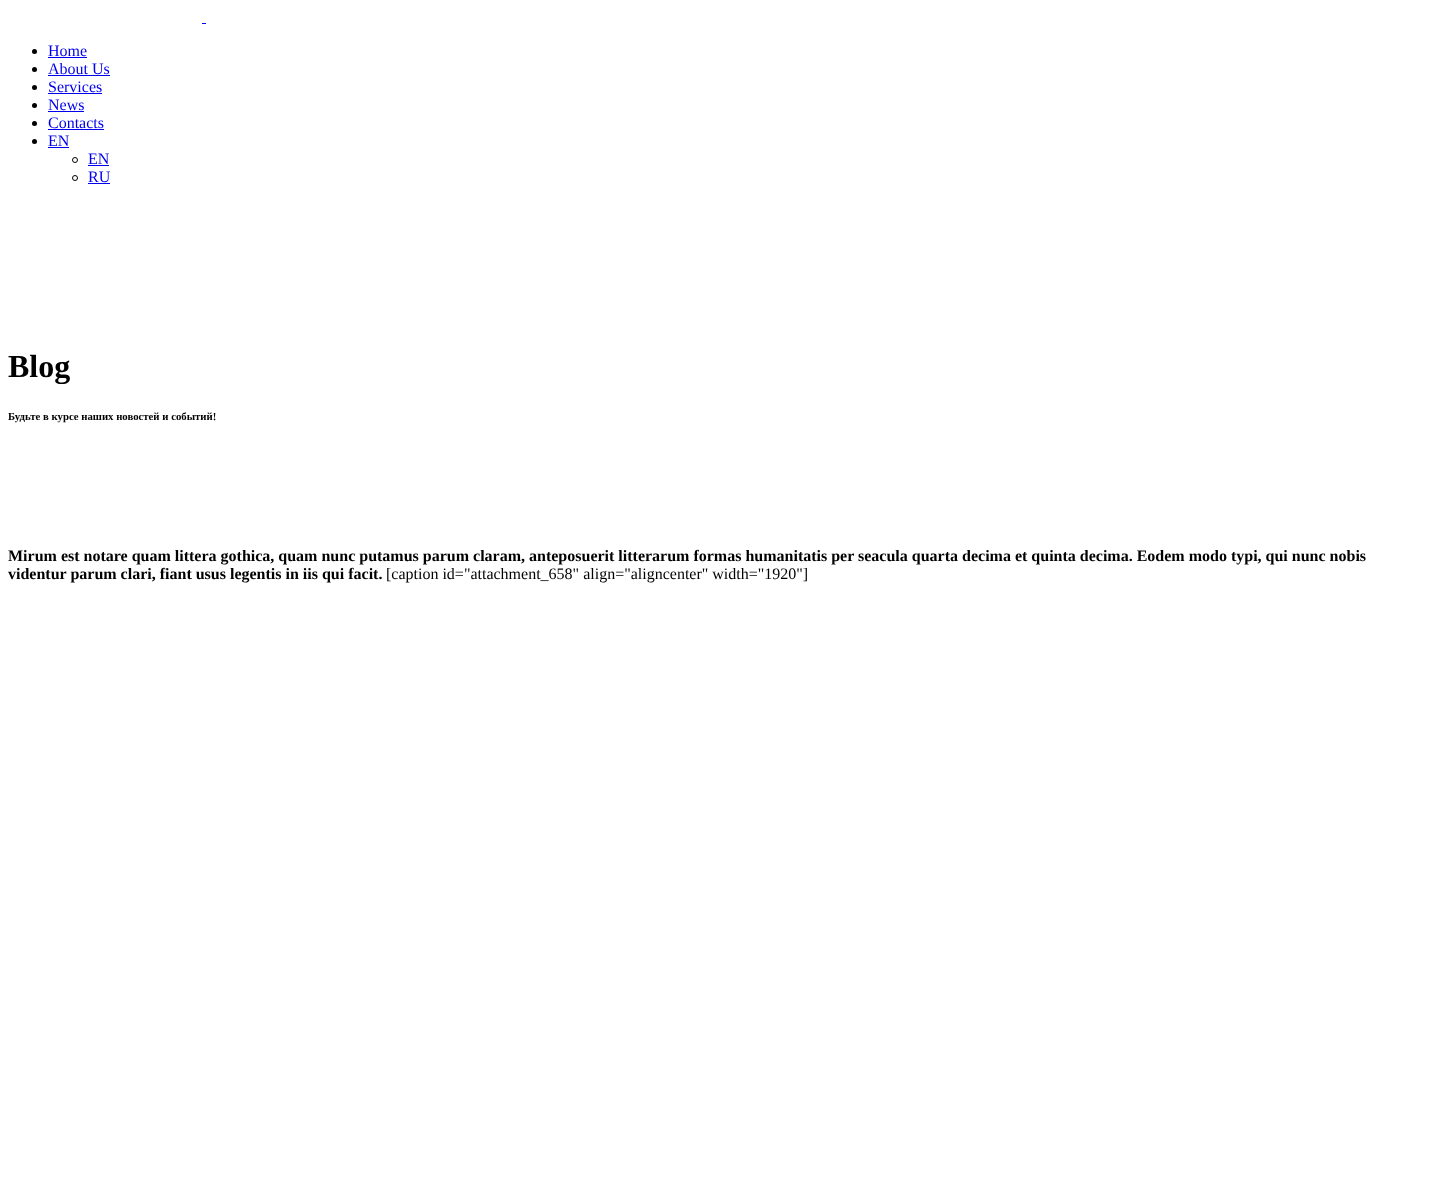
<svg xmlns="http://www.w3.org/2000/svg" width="1433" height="1195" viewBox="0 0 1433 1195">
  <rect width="100%" height="100%" fill="#ffffff"/>
  <rect x="202" y="23" width="4" height="1" fill="#0000ee"/>
  <circle cx="34.5" cy="51.5" r="2.5" fill="#000000"/>
  <text x="48" y="56" font-family="Liberation Serif" font-size="16" fill="#0000ee">Home</text>
  <rect x="48" y="57" width="39" height="1" fill="#0000ee"/>
  <circle cx="34.5" cy="69.5" r="2.5" fill="#000000"/>
  <text x="48" y="74" font-family="Liberation Serif" font-size="16" fill="#0000ee">About Us</text>
  <rect x="48" y="75" width="62" height="1" fill="#0000ee"/>
  <circle cx="34.5" cy="87.5" r="2.5" fill="#000000"/>
  <text x="48" y="92" font-family="Liberation Serif" font-size="16" fill="#0000ee">Services</text>
  <rect x="48" y="93" width="54" height="1" fill="#0000ee"/>
  <circle cx="34.5" cy="105.5" r="2.5" fill="#000000"/>
  <text x="48" y="110" font-family="Liberation Serif" font-size="16" fill="#0000ee">News</text>
  <rect x="48" y="111" width="36" height="1" fill="#0000ee"/>
  <circle cx="34.5" cy="123.5" r="2.5" fill="#000000"/>
  <text x="48" y="128" font-family="Liberation Serif" font-size="16" fill="#0000ee">Contacts</text>
  <rect x="48" y="129" width="56" height="1" fill="#0000ee"/>
  <circle cx="34.5" cy="141.5" r="2.5" fill="#000000"/>
  <text x="48" y="146" font-family="Liberation Serif" font-size="16" fill="#0000ee">EN</text>
  <rect x="48" y="147" width="21" height="1" fill="#0000ee"/>
  <circle cx="75" cy="160" r="2.5" fill="none" stroke="#000000"/>
  <text x="88" y="164" font-family="Liberation Serif" font-size="16" fill="#0000ee">EN</text>
  <rect x="88" y="165" width="21" height="1" fill="#0000ee"/>
  <circle cx="75" cy="178" r="2.5" fill="none" stroke="#000000"/>
  <text x="88" y="182" font-family="Liberation Serif" font-size="16" fill="#0000ee">RU</text>
  <rect x="88" y="183" width="22" height="1" fill="#0000ee"/>
  <text x="8" y="377" font-family="Liberation Serif" font-size="32" font-weight="bold" fill="#000000">Blog</text>
  <text x="8" y="420" font-family="Liberation Serif" font-size="10.75" font-weight="bold" fill="#000000">Будьте в курсе наших новостей и событий!</text>
  <text x="8" y="561" font-family="Liberation Serif" font-size="16" font-weight="bold" fill="#000000">Mirum est notare quam littera gothica, quam nunc putamus parum claram, anteposuerit litterarum formas humanitatis per seacula quarta decima et quinta decima. Eodem modo typi, qui nunc nobis</text>
  <text x="8" y="579" font-family="Liberation Serif" font-size="16" font-weight="bold" fill="#000000">videntur parum clari, fiant usus legentis in iis qui facit.</text>
  <text x="386" y="579" font-family="Liberation Serif" font-size="16" fill="#000000">[caption id="attachment_658" align="aligncenter" width="1920"]</text>
</svg>
